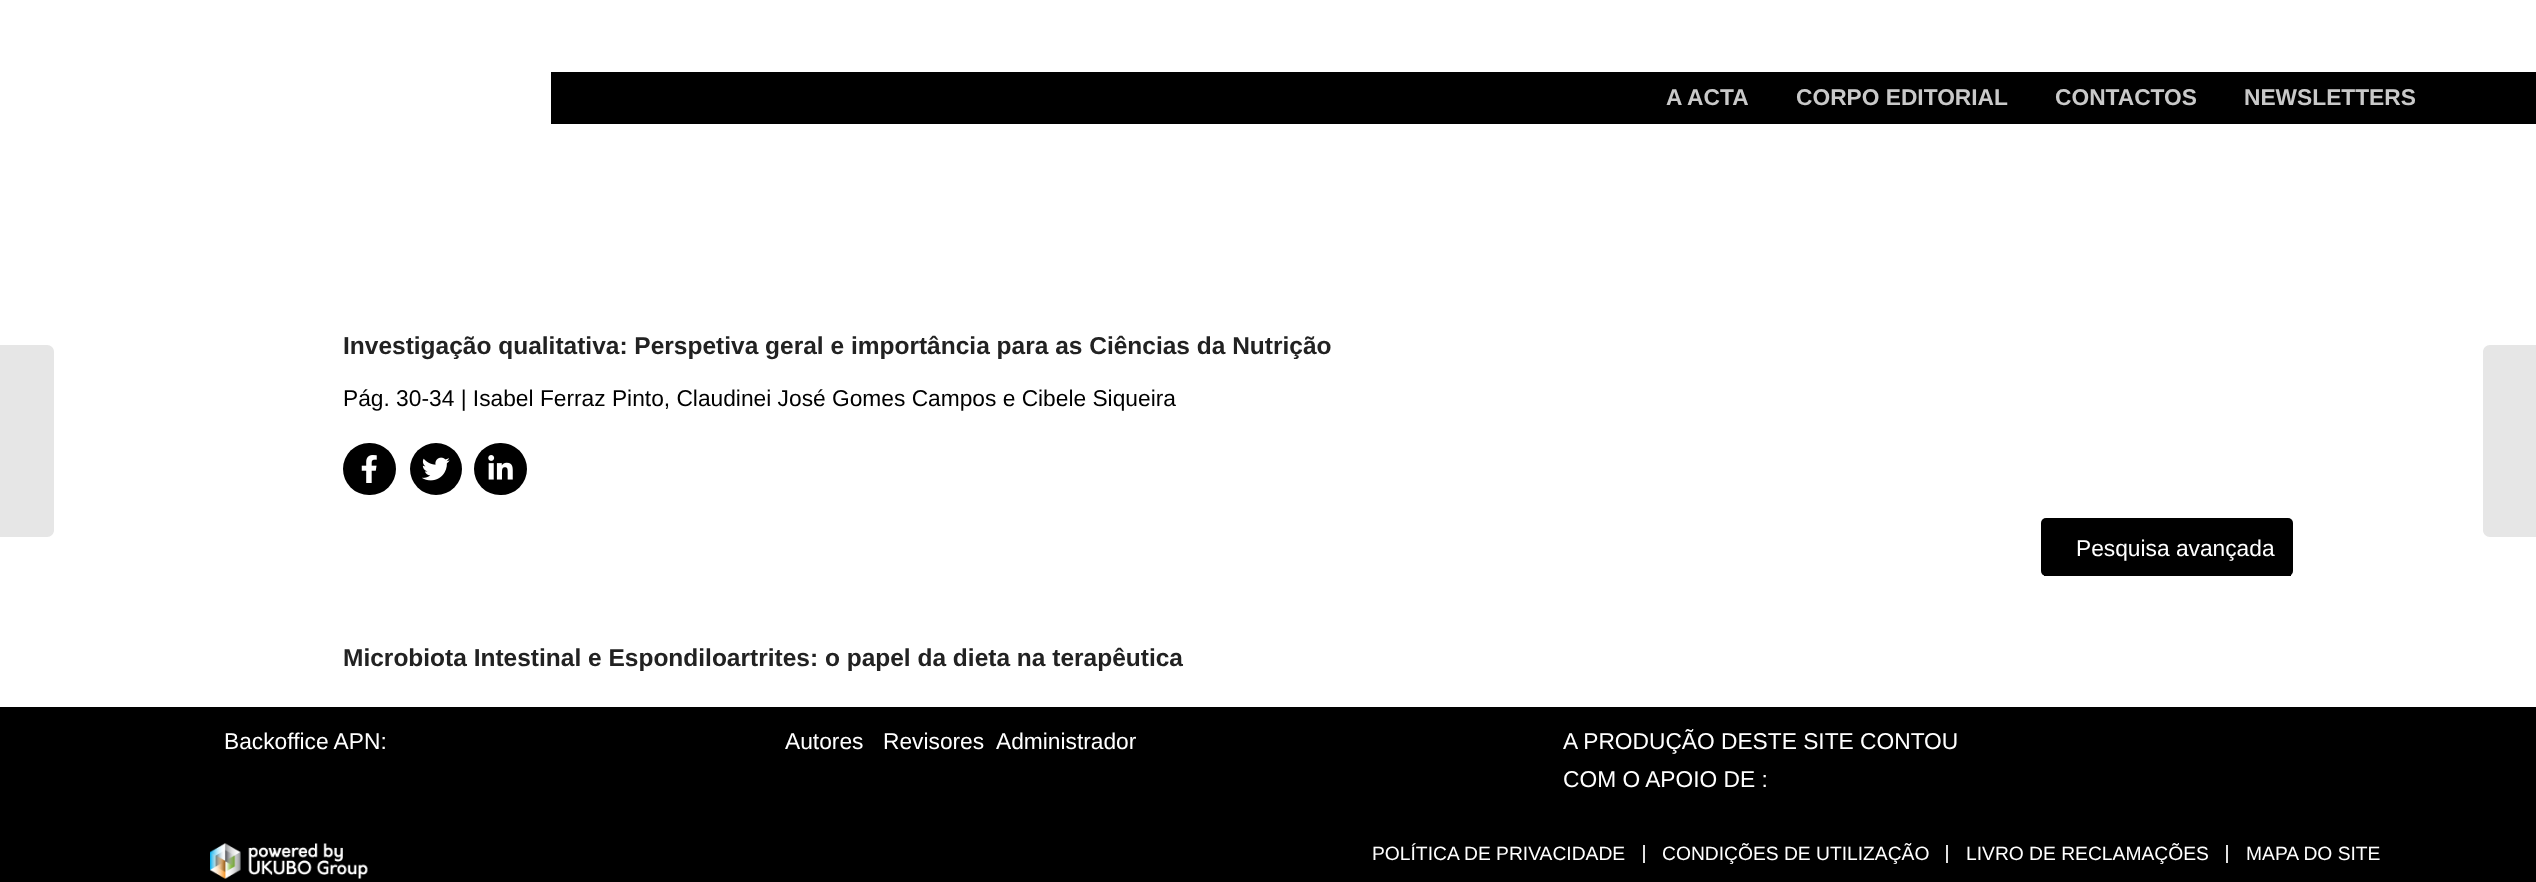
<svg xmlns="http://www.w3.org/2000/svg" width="2536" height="882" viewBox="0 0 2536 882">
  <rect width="100%" height="100%" fill="#ffffff"/>
  <rect x="551" y="72" width="1985" height="52" fill="#000000"/>
  <text x="1666" y="105" font-family="Liberation Sans" font-size="22.75" font-weight="bold" fill="#c9c9c9">A ACTA</text>
  <text x="1796" y="105" font-family="Liberation Sans" font-size="22.75" font-weight="bold" fill="#c9c9c9">CORPO EDITORIAL</text>
  <text x="2055" y="105" font-family="Liberation Sans" font-size="22.75" font-weight="bold" fill="#c9c9c9">CONTACTOS</text>
  <text x="2244" y="105" font-family="Liberation Sans" font-size="22.75" font-weight="bold" fill="#c9c9c9">NEWSLETTERS</text>
  <path d="M0 345H47C51 345 54 348 54 352V530C54 534 51 537 47 537H0Z" fill="#e6e6e6"/>
  <text x="343" y="354" font-family="Liberation Sans" font-size="24.5" font-weight="bold" fill="#222222">Investigação qualitativa: Perspetiva geral e importância para as Ciências da Nutrição</text>
  <text x="343" y="406" font-family="Liberation Sans" font-size="22.75" fill="#000000">Pág. 30-34 | Isabel Ferraz Pinto, Claudinei José Gomes Campos e Cibele Siqueira</text>
  <rect x="343" y="443" width="53" height="52" rx="26" fill="#000000"/>
  <image x="361" y="455" width="16" height="28" href="img1.png"/>
  <circle cx="436" cy="469" r="26" fill="#000000"/>
  <image x="422" y="457" width="28" height="24" href="img2.png"/>
  <rect x="474" y="443" width="53" height="52" rx="26" fill="#000000"/>
  <image x="488" y="455" width="25" height="25" href="img3.png"/>
  <text x="343" y="666" font-family="Liberation Sans" font-size="24.5" font-weight="bold" fill="#222222">Microbiota Intestinal e Espondiloartrites: o papel da dieta na terapêutica</text>
  <rect x="2041" y="518" width="252" height="58" rx="5" fill="#000000"/>
  <rect x="2044" y="575" width="247" height="1" fill="#000000"/>
  <text x="2076" y="556" font-family="Liberation Sans" font-size="22.75" fill="#ffffff">Pesquisa avançada</text>
  <rect x="0" y="707" width="2536" height="175" fill="#000000"/>
  <text x="224" y="749" font-family="Liberation Sans" font-size="22.75" fill="#ffffff">Backoffice APN:</text>
  <text x="785" y="749" font-family="Liberation Sans" font-size="22.75" fill="#ffffff">Autores</text>
  <text x="883" y="749" font-family="Liberation Sans" font-size="22.75" fill="#ffffff">Revisores</text>
  <text x="996" y="749" font-family="Liberation Sans" font-size="22.75" fill="#ffffff">Administrador</text>
  <text x="1563" y="749" font-family="Liberation Sans" font-size="22.75" fill="#ffffff">A PRODUÇÃO DESTE SITE CONTOU</text>
  <text x="1563" y="787" font-family="Liberation Sans" font-size="22.75" fill="#ffffff">COM O APOIO DE :</text>
  <image x="210" y="843" width="158" height="36" href="img4.png"/>
  <text x="1372" y="860" font-family="Liberation Sans" font-size="19.25" fill="#ffffff">POLÍTICA DE PRIVACIDADE</text>
  <rect x="1643" y="845" width="2" height="18" fill="#e1e1e1"/>
  <text x="1662" y="860" font-family="Liberation Sans" font-size="19.25" fill="#ffffff">CONDIÇÕES DE UTILIZAÇÃO</text>
  <rect x="1946" y="845" width="2" height="18" fill="#e1e1e1"/>
  <text x="1966" y="860" font-family="Liberation Sans" font-size="19.25" fill="#ffffff">LIVRO DE RECLAMAÇÕES</text>
  <rect x="2226" y="845" width="2" height="18" fill="#e1e1e1"/>
  <text x="2246" y="860" font-family="Liberation Sans" font-size="19.25" fill="#ffffff">MAPA DO SITE</text>
  <path d="M2490 345H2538V537H2490C2486 537 2483 534 2483 530V352C2483 348 2486 345 2490 345Z" fill="#e6e6e6"/>
</svg>
